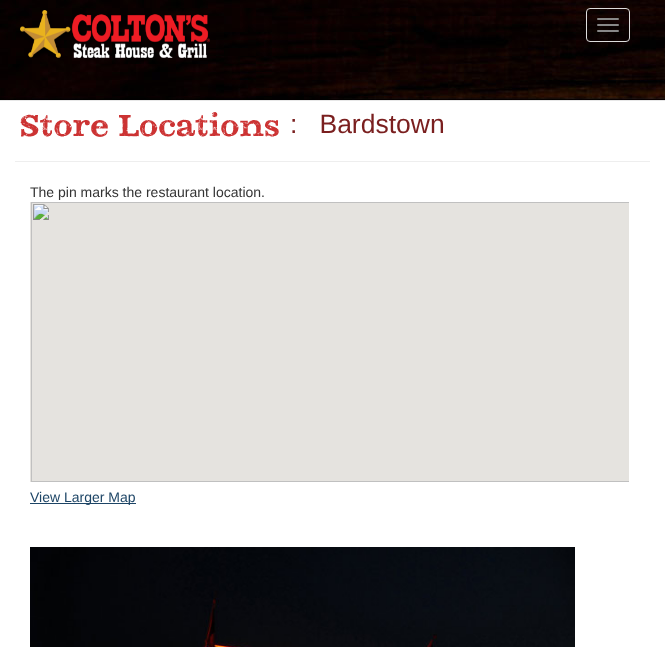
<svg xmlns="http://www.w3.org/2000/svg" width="665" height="647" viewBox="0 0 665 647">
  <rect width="100%" height="100%" fill="#ffffff"/>
  <rect x="0" y="100" width="665" height="1" fill="#e7e7e7"/>
  <image x="0" y="0" width="665" height="100" href="img1.png"/>
  <image x="20" y="10" width="190" height="48" href="img2.png"/>
  <rect x="586.5" y="8.5" width="43" height="33" rx="3.5" fill="none" stroke="#dddddd"/>
  <rect x="597" y="18" width="22" height="2" rx="1" fill="#888888"/>
  <rect x="597" y="24" width="22" height="2" rx="1" fill="#888888"/>
  <rect x="597" y="30" width="22" height="2" rx="1" fill="#888888"/>
  <image x="20" y="112" width="259" height="25" href="img3.png"/>
  <text x="290" y="133" font-family="Liberation Sans" font-size="26.5" fill="#7a1f1f" xml:space="preserve">:   Bardstown</text>
  <rect x="15" y="161" width="635" height="1" fill="#eeeeee"/>
  <text x="30" y="197" font-family="Liberation Sans" font-size="14" fill="#333333">The pin marks the restaurant location.</text>
  <image x="30" y="202" width="599" height="280" href="img4.png"/>
  <rect x="30" y="503" width="106" height="1" fill="#1d4566"/>
  <text x="30" y="502" font-family="Liberation Sans" font-size="14" fill="#1d4566">View Larger Map</text>
  <image x="30" y="547" width="545" height="100" href="img5.png"/>
</svg>
